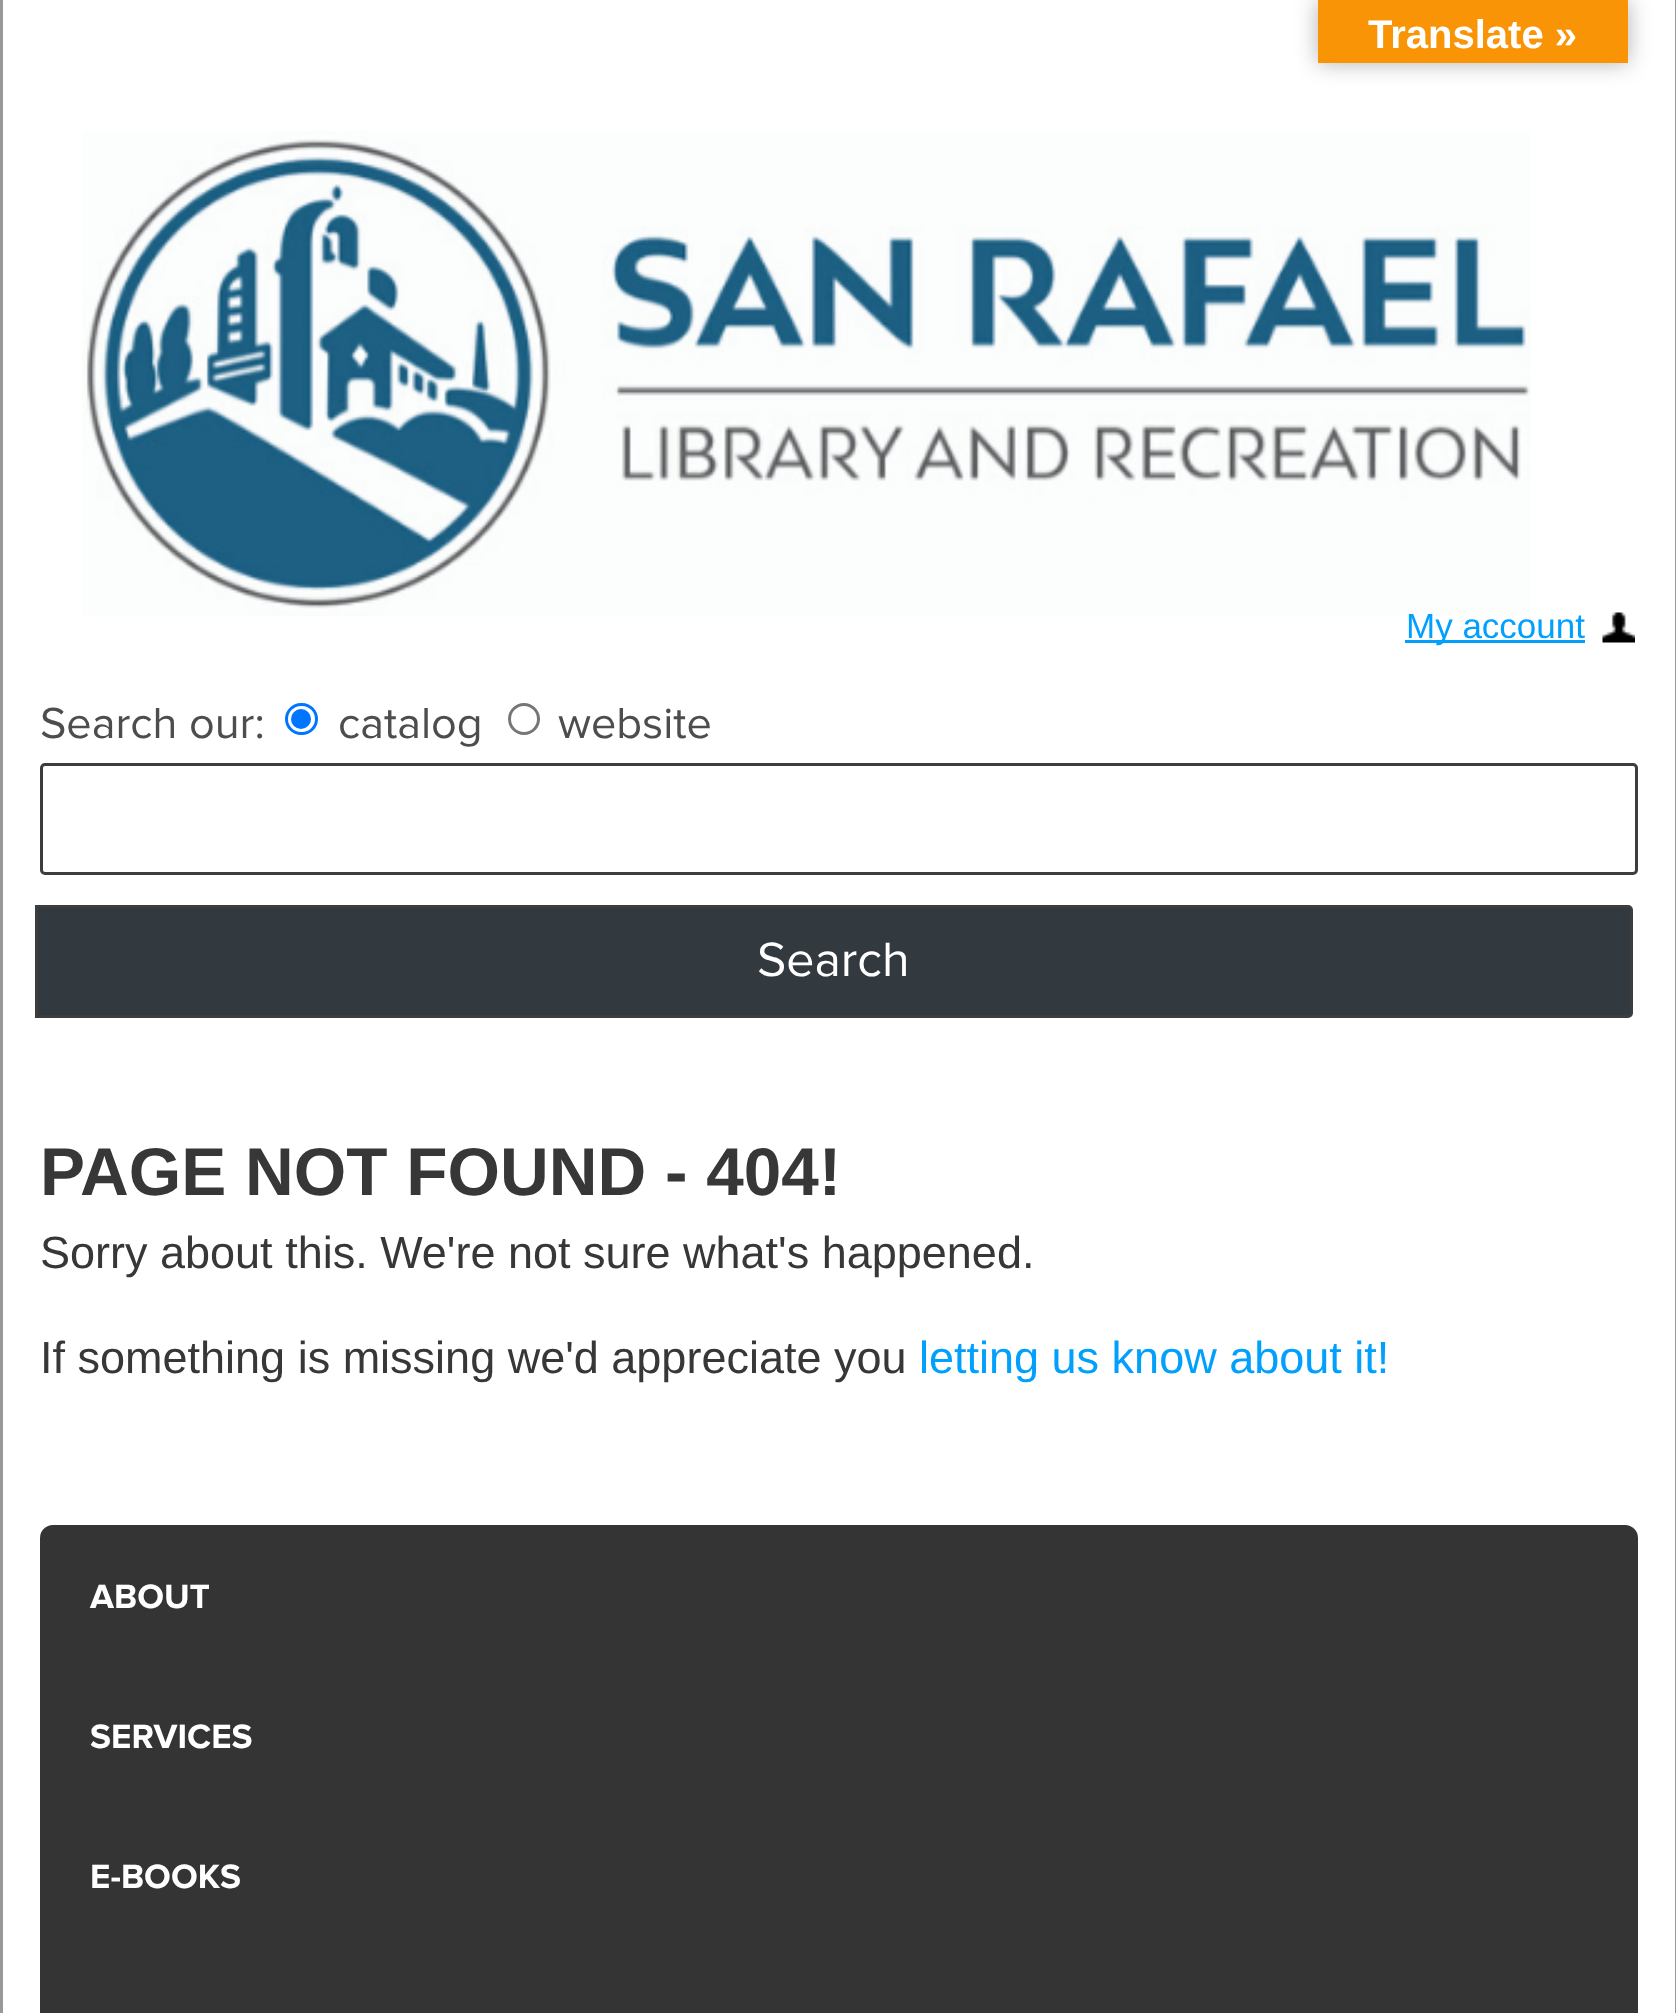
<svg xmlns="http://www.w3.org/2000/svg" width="1676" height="2013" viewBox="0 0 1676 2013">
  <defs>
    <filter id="blur1" x="-50%" y="-200%" width="200%" height="500%"><feGaussianBlur stdDeviation="11"/></filter>
  </defs>
  <rect width="100%" height="100%" fill="#ffffff"/>
  <rect x="1318" y="0" width="310" height="63" fill="#000000" fill-opacity="0.3" filter="url(#blur1)"/>
  <rect x="1318" y="0" width="310" height="63" fill="#f89406"/>
  <text x="1368" y="48" font-family="Liberation Sans" font-size="40" font-weight="bold" fill="#ffffff">Translate »</text>
  <rect x="1675" y="0" width="1" height="2013" fill="#999999"/>
  <rect x="0" y="0" width="3" height="2013" fill="#999999"/>
  <image x="82" y="131" width="1449" height="485" href="img1.png"/>
  <image x="1602" y="612" width="33" height="31" href="img2.png"/>
  <rect x="1405" y="640" width="180" height="3" fill="#00a0fc"/>
  <text x="1406" y="638" font-family="Liberation Sans" font-size="35" fill="#00a0fc">My account</text>
  <text x="40" y="738" font-family="Proxima Nova" font-size="45" fill="#4d4d4d">Search our:</text>
  <rect x="286.5" y="704.5" width="30" height="29" rx="14.5" fill="none" stroke="#0075ff" stroke-width="3"/>
  <circle cx="301" cy="719" r="10" fill="#0075ff"/>
  <text x="338" y="738" font-family="Proxima Nova" font-size="45" fill="#4d4d4d">catalog</text>
  <circle cx="524" cy="719" r="14.5" fill="none" stroke="#767676" stroke-width="3"/>
  <text x="558" y="738" font-family="Proxima Nova" font-size="45" fill="#4d4d4d">website</text>
  <rect x="41.5" y="764.5" width="1595" height="109" rx="3.5" fill="none" stroke="#3d3d3d" stroke-width="3"/>
  <path d="M36.5 906.5H1628C1630 906.5 1631.5 908 1631.5 910V1013C1631.5 1015 1630 1016.5 1628 1016.5H36.5Z" fill="#32393f" stroke="#3d3d3d" stroke-width="3"/>
  <text x="757" y="976" font-family="Proxima Nova" font-size="50" fill="#ffffff">Search</text>
  <text x="40" y="1195" font-family="Liberation Sans" font-size="67.5" font-weight="bold" fill="#373737">PAGE NOT FOUND - 404!</text>
  <text x="40" y="1268" font-family="Liberation Sans" font-size="45" fill="#373737">Sorry about this. We're not sure what's happened.</text>
  <text x="40" y="1373" font-family="Liberation Sans" font-size="45" fill="#373737">If something is missing we'd appreciate you</text>
  <text x="919" y="1373" font-family="Liberation Sans" font-size="45" fill="#00a0fc">letting us know about it!</text>
  <rect x="40" y="1525" width="1598" height="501" rx="13" fill="#343434"/>
  <text x="90" y="1608" font-family="Proxima Nova" font-size="35" font-weight="bold" fill="#ffffff">ABOUT</text>
  <text x="90" y="1748" font-family="Proxima Nova" font-size="35" font-weight="bold" fill="#ffffff">SERVICES</text>
  <text x="90" y="1888" font-family="Proxima Nova" font-size="35" font-weight="bold" fill="#ffffff">E-BOOKS</text>
</svg>
